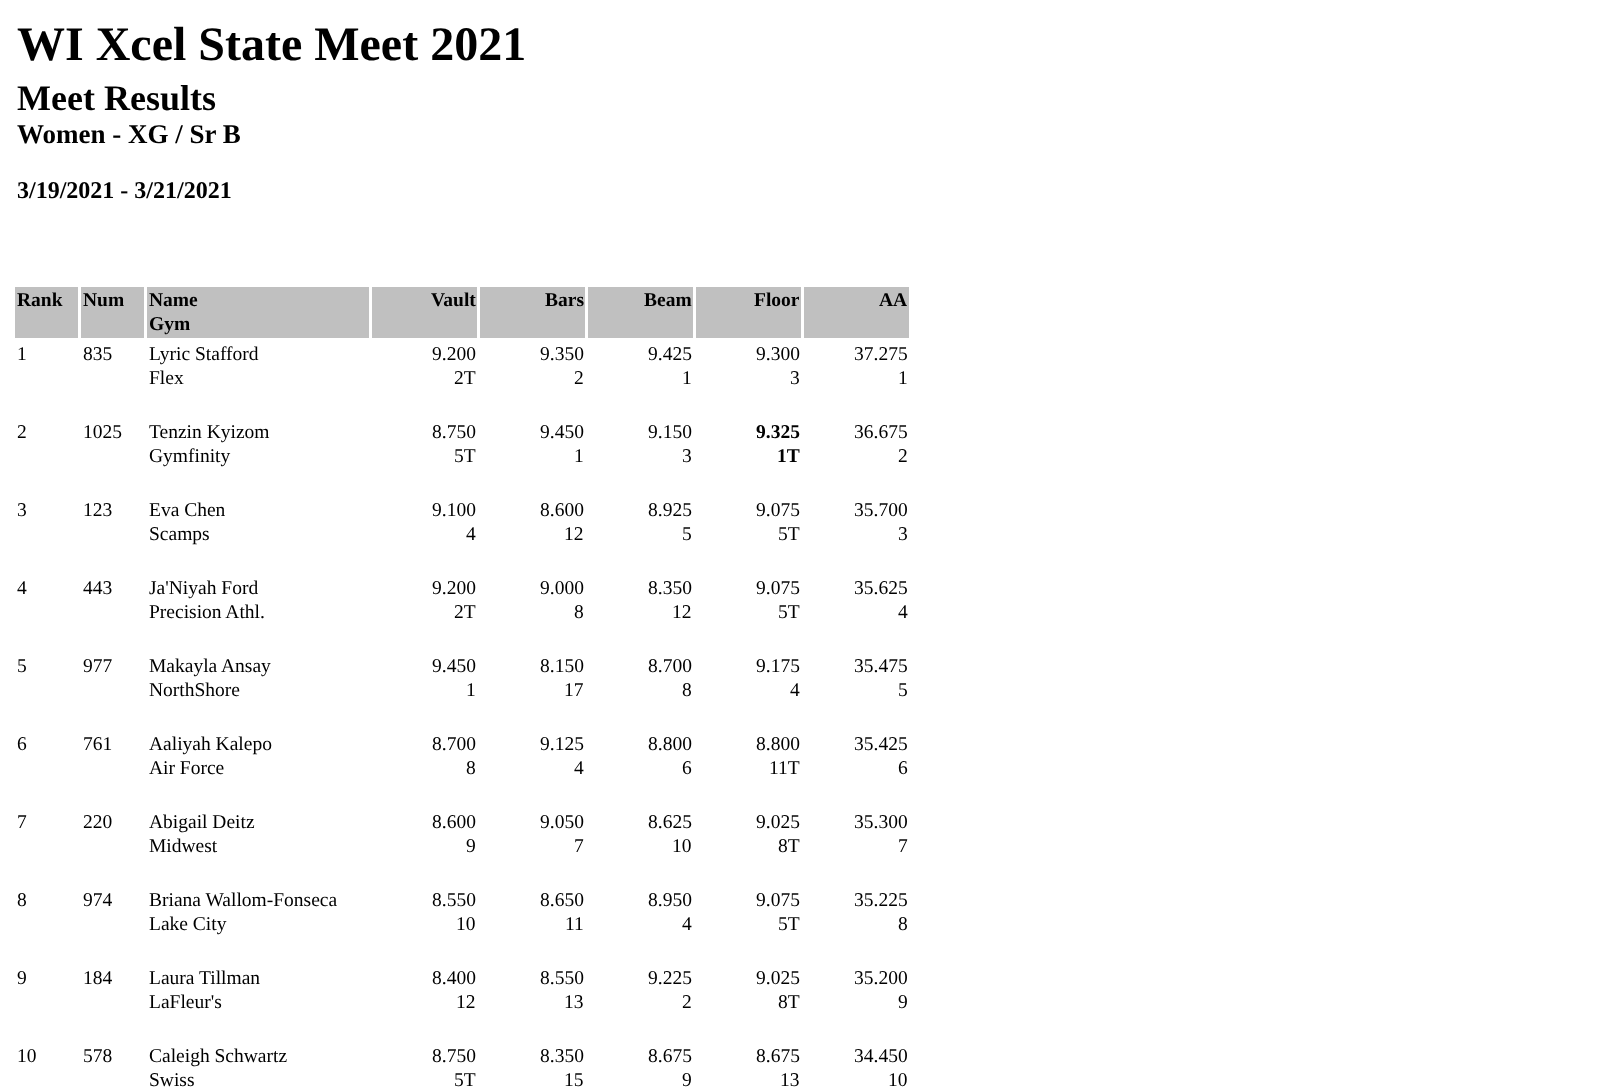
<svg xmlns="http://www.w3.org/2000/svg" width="1597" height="1089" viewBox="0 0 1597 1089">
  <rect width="100%" height="100%" fill="#ffffff"/>
  <text x="17" y="60" font-family="Liberation Serif" font-size="48" font-weight="bold" fill="#000000">WI Xcel State Meet 2021</text>
  <text x="17" y="110" font-family="Liberation Serif" font-size="36" font-weight="bold" fill="#000000">Meet Results</text>
  <text x="17" y="143" font-family="Liberation Serif" font-size="27" font-weight="bold" fill="#000000">Women - XG / Sr B</text>
  <text x="17" y="198" font-family="Liberation Serif" font-size="24" font-weight="bold" fill="#000000">3/19/2021 - 3/21/2021</text>
  <rect x="15" y="287" width="63" height="51" fill="#c0c0c0"/>
  <text x="17" y="306" font-family="Liberation Serif" font-size="19.5" font-weight="bold" fill="#000000">Rank</text>
  <rect x="81" y="287" width="63" height="51" fill="#c0c0c0"/>
  <text x="83" y="306" font-family="Liberation Serif" font-size="19.5" font-weight="bold" fill="#000000">Num</text>
  <rect x="147" y="287" width="222" height="51" fill="#c0c0c0"/>
  <text x="149" y="306" font-family="Liberation Serif" font-size="19.5" font-weight="bold" fill="#000000">Name</text>
  <text x="149" y="330" font-family="Liberation Serif" font-size="19.5" font-weight="bold" fill="#000000">Gym</text>
  <rect x="372" y="287" width="105" height="51" fill="#c0c0c0"/>
  <text x="431" y="306" font-family="Liberation Serif" font-size="19.5" font-weight="bold" fill="#000000">Vault</text>
  <rect x="480" y="287" width="105" height="51" fill="#c0c0c0"/>
  <text x="545" y="306" font-family="Liberation Serif" font-size="19.5" font-weight="bold" fill="#000000">Bars</text>
  <rect x="588" y="287" width="105" height="51" fill="#c0c0c0"/>
  <text x="644" y="306" font-family="Liberation Serif" font-size="19.5" font-weight="bold" fill="#000000">Beam</text>
  <rect x="696" y="287" width="105" height="51" fill="#c0c0c0"/>
  <text x="754" y="306" font-family="Liberation Serif" font-size="19.5" font-weight="bold" fill="#000000">Floor</text>
  <rect x="804" y="287" width="105" height="51" fill="#c0c0c0"/>
  <text x="879" y="306" font-family="Liberation Serif" font-size="19.5" font-weight="bold" fill="#000000">AA</text>
  <text x="17" y="360" font-family="Liberation Serif" font-size="19.5" fill="#000000">1</text>
  <text x="83" y="360" font-family="Liberation Serif" font-size="19.5" fill="#000000">835</text>
  <text x="149" y="360" font-family="Liberation Serif" font-size="19.5" fill="#000000">Lyric Stafford</text>
  <text x="149" y="384" font-family="Liberation Serif" font-size="19.5" fill="#000000">Flex</text>
  <text x="432" y="360" font-family="Liberation Serif" font-size="19.5" fill="#000000">9.200</text>
  <text x="454" y="384" font-family="Liberation Serif" font-size="19.5" fill="#000000">2T</text>
  <text x="540" y="360" font-family="Liberation Serif" font-size="19.5" fill="#000000">9.350</text>
  <text x="574" y="384" font-family="Liberation Serif" font-size="19.5" fill="#000000">2</text>
  <text x="648" y="360" font-family="Liberation Serif" font-size="19.5" fill="#000000">9.425</text>
  <text x="682" y="384" font-family="Liberation Serif" font-size="19.5" fill="#000000">1</text>
  <text x="756" y="360" font-family="Liberation Serif" font-size="19.5" fill="#000000">9.300</text>
  <text x="790" y="384" font-family="Liberation Serif" font-size="19.5" fill="#000000">3</text>
  <text x="854" y="360" font-family="Liberation Serif" font-size="19.5" fill="#000000">37.275</text>
  <text x="898" y="384" font-family="Liberation Serif" font-size="19.5" fill="#000000">1</text>
  <text x="17" y="438" font-family="Liberation Serif" font-size="19.5" fill="#000000">2</text>
  <text x="83" y="438" font-family="Liberation Serif" font-size="19.5" fill="#000000">1025</text>
  <text x="149" y="438" font-family="Liberation Serif" font-size="19.5" fill="#000000">Tenzin Kyizom</text>
  <text x="149" y="462" font-family="Liberation Serif" font-size="19.5" fill="#000000">Gymfinity</text>
  <text x="432" y="438" font-family="Liberation Serif" font-size="19.5" fill="#000000">8.750</text>
  <text x="454" y="462" font-family="Liberation Serif" font-size="19.5" fill="#000000">5T</text>
  <text x="540" y="438" font-family="Liberation Serif" font-size="19.5" fill="#000000">9.450</text>
  <text x="574" y="462" font-family="Liberation Serif" font-size="19.5" fill="#000000">1</text>
  <text x="648" y="438" font-family="Liberation Serif" font-size="19.5" fill="#000000">9.150</text>
  <text x="682" y="462" font-family="Liberation Serif" font-size="19.5" fill="#000000">3</text>
  <text x="756" y="438" font-family="Liberation Serif" font-size="19.5" font-weight="bold" fill="#000000">9.325</text>
  <text x="777" y="462" font-family="Liberation Serif" font-size="19.5" font-weight="bold" fill="#000000">1T</text>
  <text x="854" y="438" font-family="Liberation Serif" font-size="19.5" fill="#000000">36.675</text>
  <text x="898" y="462" font-family="Liberation Serif" font-size="19.5" fill="#000000">2</text>
  <text x="17" y="516" font-family="Liberation Serif" font-size="19.5" fill="#000000">3</text>
  <text x="83" y="516" font-family="Liberation Serif" font-size="19.5" fill="#000000">123</text>
  <text x="149" y="516" font-family="Liberation Serif" font-size="19.5" fill="#000000">Eva Chen</text>
  <text x="149" y="540" font-family="Liberation Serif" font-size="19.5" fill="#000000">Scamps</text>
  <text x="432" y="516" font-family="Liberation Serif" font-size="19.5" fill="#000000">9.100</text>
  <text x="466" y="540" font-family="Liberation Serif" font-size="19.5" fill="#000000">4</text>
  <text x="540" y="516" font-family="Liberation Serif" font-size="19.5" fill="#000000">8.600</text>
  <text x="564" y="540" font-family="Liberation Serif" font-size="19.5" fill="#000000">12</text>
  <text x="648" y="516" font-family="Liberation Serif" font-size="19.5" fill="#000000">8.925</text>
  <text x="682" y="540" font-family="Liberation Serif" font-size="19.5" fill="#000000">5</text>
  <text x="756" y="516" font-family="Liberation Serif" font-size="19.5" fill="#000000">9.075</text>
  <text x="778" y="540" font-family="Liberation Serif" font-size="19.5" fill="#000000">5T</text>
  <text x="854" y="516" font-family="Liberation Serif" font-size="19.5" fill="#000000">35.700</text>
  <text x="898" y="540" font-family="Liberation Serif" font-size="19.5" fill="#000000">3</text>
  <text x="17" y="594" font-family="Liberation Serif" font-size="19.5" fill="#000000">4</text>
  <text x="83" y="594" font-family="Liberation Serif" font-size="19.5" fill="#000000">443</text>
  <text x="149" y="594" font-family="Liberation Serif" font-size="19.5" fill="#000000">Ja'Niyah Ford</text>
  <text x="149" y="618" font-family="Liberation Serif" font-size="19.5" fill="#000000">Precision Athl.</text>
  <text x="432" y="594" font-family="Liberation Serif" font-size="19.5" fill="#000000">9.200</text>
  <text x="454" y="618" font-family="Liberation Serif" font-size="19.5" fill="#000000">2T</text>
  <text x="540" y="594" font-family="Liberation Serif" font-size="19.5" fill="#000000">9.000</text>
  <text x="574" y="618" font-family="Liberation Serif" font-size="19.5" fill="#000000">8</text>
  <text x="648" y="594" font-family="Liberation Serif" font-size="19.5" fill="#000000">8.350</text>
  <text x="672" y="618" font-family="Liberation Serif" font-size="19.5" fill="#000000">12</text>
  <text x="756" y="594" font-family="Liberation Serif" font-size="19.5" fill="#000000">9.075</text>
  <text x="778" y="618" font-family="Liberation Serif" font-size="19.5" fill="#000000">5T</text>
  <text x="854" y="594" font-family="Liberation Serif" font-size="19.5" fill="#000000">35.625</text>
  <text x="898" y="618" font-family="Liberation Serif" font-size="19.5" fill="#000000">4</text>
  <text x="17" y="672" font-family="Liberation Serif" font-size="19.5" fill="#000000">5</text>
  <text x="83" y="672" font-family="Liberation Serif" font-size="19.5" fill="#000000">977</text>
  <text x="149" y="672" font-family="Liberation Serif" font-size="19.5" fill="#000000">Makayla Ansay</text>
  <text x="149" y="696" font-family="Liberation Serif" font-size="19.5" fill="#000000">NorthShore</text>
  <text x="432" y="672" font-family="Liberation Serif" font-size="19.5" fill="#000000">9.450</text>
  <text x="466" y="696" font-family="Liberation Serif" font-size="19.5" fill="#000000">1</text>
  <text x="540" y="672" font-family="Liberation Serif" font-size="19.5" fill="#000000">8.150</text>
  <text x="564" y="696" font-family="Liberation Serif" font-size="19.5" fill="#000000">17</text>
  <text x="648" y="672" font-family="Liberation Serif" font-size="19.5" fill="#000000">8.700</text>
  <text x="682" y="696" font-family="Liberation Serif" font-size="19.5" fill="#000000">8</text>
  <text x="756" y="672" font-family="Liberation Serif" font-size="19.5" fill="#000000">9.175</text>
  <text x="790" y="696" font-family="Liberation Serif" font-size="19.5" fill="#000000">4</text>
  <text x="854" y="672" font-family="Liberation Serif" font-size="19.5" fill="#000000">35.475</text>
  <text x="898" y="696" font-family="Liberation Serif" font-size="19.5" fill="#000000">5</text>
  <text x="17" y="750" font-family="Liberation Serif" font-size="19.5" fill="#000000">6</text>
  <text x="83" y="750" font-family="Liberation Serif" font-size="19.5" fill="#000000">761</text>
  <text x="149" y="750" font-family="Liberation Serif" font-size="19.5" fill="#000000">Aaliyah Kalepo</text>
  <text x="149" y="774" font-family="Liberation Serif" font-size="19.5" fill="#000000">Air Force</text>
  <text x="432" y="750" font-family="Liberation Serif" font-size="19.5" fill="#000000">8.700</text>
  <text x="466" y="774" font-family="Liberation Serif" font-size="19.5" fill="#000000">8</text>
  <text x="540" y="750" font-family="Liberation Serif" font-size="19.5" fill="#000000">9.125</text>
  <text x="574" y="774" font-family="Liberation Serif" font-size="19.5" fill="#000000">4</text>
  <text x="648" y="750" font-family="Liberation Serif" font-size="19.5" fill="#000000">8.800</text>
  <text x="682" y="774" font-family="Liberation Serif" font-size="19.5" fill="#000000">6</text>
  <text x="756" y="750" font-family="Liberation Serif" font-size="19.5" fill="#000000">8.800</text>
  <text x="769" y="774" font-family="Liberation Serif" font-size="19.5" fill="#000000">11T</text>
  <text x="854" y="750" font-family="Liberation Serif" font-size="19.5" fill="#000000">35.425</text>
  <text x="898" y="774" font-family="Liberation Serif" font-size="19.5" fill="#000000">6</text>
  <text x="17" y="828" font-family="Liberation Serif" font-size="19.5" fill="#000000">7</text>
  <text x="83" y="828" font-family="Liberation Serif" font-size="19.5" fill="#000000">220</text>
  <text x="149" y="828" font-family="Liberation Serif" font-size="19.5" fill="#000000">Abigail Deitz</text>
  <text x="149" y="852" font-family="Liberation Serif" font-size="19.5" fill="#000000">Midwest</text>
  <text x="432" y="828" font-family="Liberation Serif" font-size="19.5" fill="#000000">8.600</text>
  <text x="466" y="852" font-family="Liberation Serif" font-size="19.5" fill="#000000">9</text>
  <text x="540" y="828" font-family="Liberation Serif" font-size="19.5" fill="#000000">9.050</text>
  <text x="574" y="852" font-family="Liberation Serif" font-size="19.5" fill="#000000">7</text>
  <text x="648" y="828" font-family="Liberation Serif" font-size="19.5" fill="#000000">8.625</text>
  <text x="672" y="852" font-family="Liberation Serif" font-size="19.5" fill="#000000">10</text>
  <text x="756" y="828" font-family="Liberation Serif" font-size="19.5" fill="#000000">9.025</text>
  <text x="778" y="852" font-family="Liberation Serif" font-size="19.5" fill="#000000">8T</text>
  <text x="854" y="828" font-family="Liberation Serif" font-size="19.5" fill="#000000">35.300</text>
  <text x="898" y="852" font-family="Liberation Serif" font-size="19.5" fill="#000000">7</text>
  <text x="17" y="906" font-family="Liberation Serif" font-size="19.5" fill="#000000">8</text>
  <text x="83" y="906" font-family="Liberation Serif" font-size="19.5" fill="#000000">974</text>
  <text x="149" y="906" font-family="Liberation Serif" font-size="19.5" fill="#000000">Briana Wallom-Fonseca</text>
  <text x="149" y="930" font-family="Liberation Serif" font-size="19.5" fill="#000000">Lake City</text>
  <text x="432" y="906" font-family="Liberation Serif" font-size="19.5" fill="#000000">8.550</text>
  <text x="456" y="930" font-family="Liberation Serif" font-size="19.5" fill="#000000">10</text>
  <text x="540" y="906" font-family="Liberation Serif" font-size="19.5" fill="#000000">8.650</text>
  <text x="565" y="930" font-family="Liberation Serif" font-size="19.5" fill="#000000">11</text>
  <text x="648" y="906" font-family="Liberation Serif" font-size="19.5" fill="#000000">8.950</text>
  <text x="682" y="930" font-family="Liberation Serif" font-size="19.5" fill="#000000">4</text>
  <text x="756" y="906" font-family="Liberation Serif" font-size="19.5" fill="#000000">9.075</text>
  <text x="778" y="930" font-family="Liberation Serif" font-size="19.5" fill="#000000">5T</text>
  <text x="854" y="906" font-family="Liberation Serif" font-size="19.5" fill="#000000">35.225</text>
  <text x="898" y="930" font-family="Liberation Serif" font-size="19.5" fill="#000000">8</text>
  <text x="17" y="984" font-family="Liberation Serif" font-size="19.5" fill="#000000">9</text>
  <text x="83" y="984" font-family="Liberation Serif" font-size="19.5" fill="#000000">184</text>
  <text x="149" y="984" font-family="Liberation Serif" font-size="19.5" fill="#000000">Laura Tillman</text>
  <text x="149" y="1008" font-family="Liberation Serif" font-size="19.5" fill="#000000">LaFleur's</text>
  <text x="432" y="984" font-family="Liberation Serif" font-size="19.5" fill="#000000">8.400</text>
  <text x="456" y="1008" font-family="Liberation Serif" font-size="19.5" fill="#000000">12</text>
  <text x="540" y="984" font-family="Liberation Serif" font-size="19.5" fill="#000000">8.550</text>
  <text x="564" y="1008" font-family="Liberation Serif" font-size="19.5" fill="#000000">13</text>
  <text x="648" y="984" font-family="Liberation Serif" font-size="19.5" fill="#000000">9.225</text>
  <text x="682" y="1008" font-family="Liberation Serif" font-size="19.5" fill="#000000">2</text>
  <text x="756" y="984" font-family="Liberation Serif" font-size="19.5" fill="#000000">9.025</text>
  <text x="778" y="1008" font-family="Liberation Serif" font-size="19.5" fill="#000000">8T</text>
  <text x="854" y="984" font-family="Liberation Serif" font-size="19.5" fill="#000000">35.200</text>
  <text x="898" y="1008" font-family="Liberation Serif" font-size="19.5" fill="#000000">9</text>
  <text x="17" y="1062" font-family="Liberation Serif" font-size="19.5" fill="#000000">10</text>
  <text x="83" y="1062" font-family="Liberation Serif" font-size="19.5" fill="#000000">578</text>
  <text x="149" y="1062" font-family="Liberation Serif" font-size="19.5" fill="#000000">Caleigh Schwartz</text>
  <text x="149" y="1086" font-family="Liberation Serif" font-size="19.5" fill="#000000">Swiss</text>
  <text x="432" y="1062" font-family="Liberation Serif" font-size="19.5" fill="#000000">8.750</text>
  <text x="454" y="1086" font-family="Liberation Serif" font-size="19.5" fill="#000000">5T</text>
  <text x="540" y="1062" font-family="Liberation Serif" font-size="19.5" fill="#000000">8.350</text>
  <text x="564" y="1086" font-family="Liberation Serif" font-size="19.5" fill="#000000">15</text>
  <text x="648" y="1062" font-family="Liberation Serif" font-size="19.5" fill="#000000">8.675</text>
  <text x="682" y="1086" font-family="Liberation Serif" font-size="19.5" fill="#000000">9</text>
  <text x="756" y="1062" font-family="Liberation Serif" font-size="19.5" fill="#000000">8.675</text>
  <text x="780" y="1086" font-family="Liberation Serif" font-size="19.5" fill="#000000">13</text>
  <text x="854" y="1062" font-family="Liberation Serif" font-size="19.5" fill="#000000">34.450</text>
  <text x="888" y="1086" font-family="Liberation Serif" font-size="19.5" fill="#000000">10</text>
</svg>
